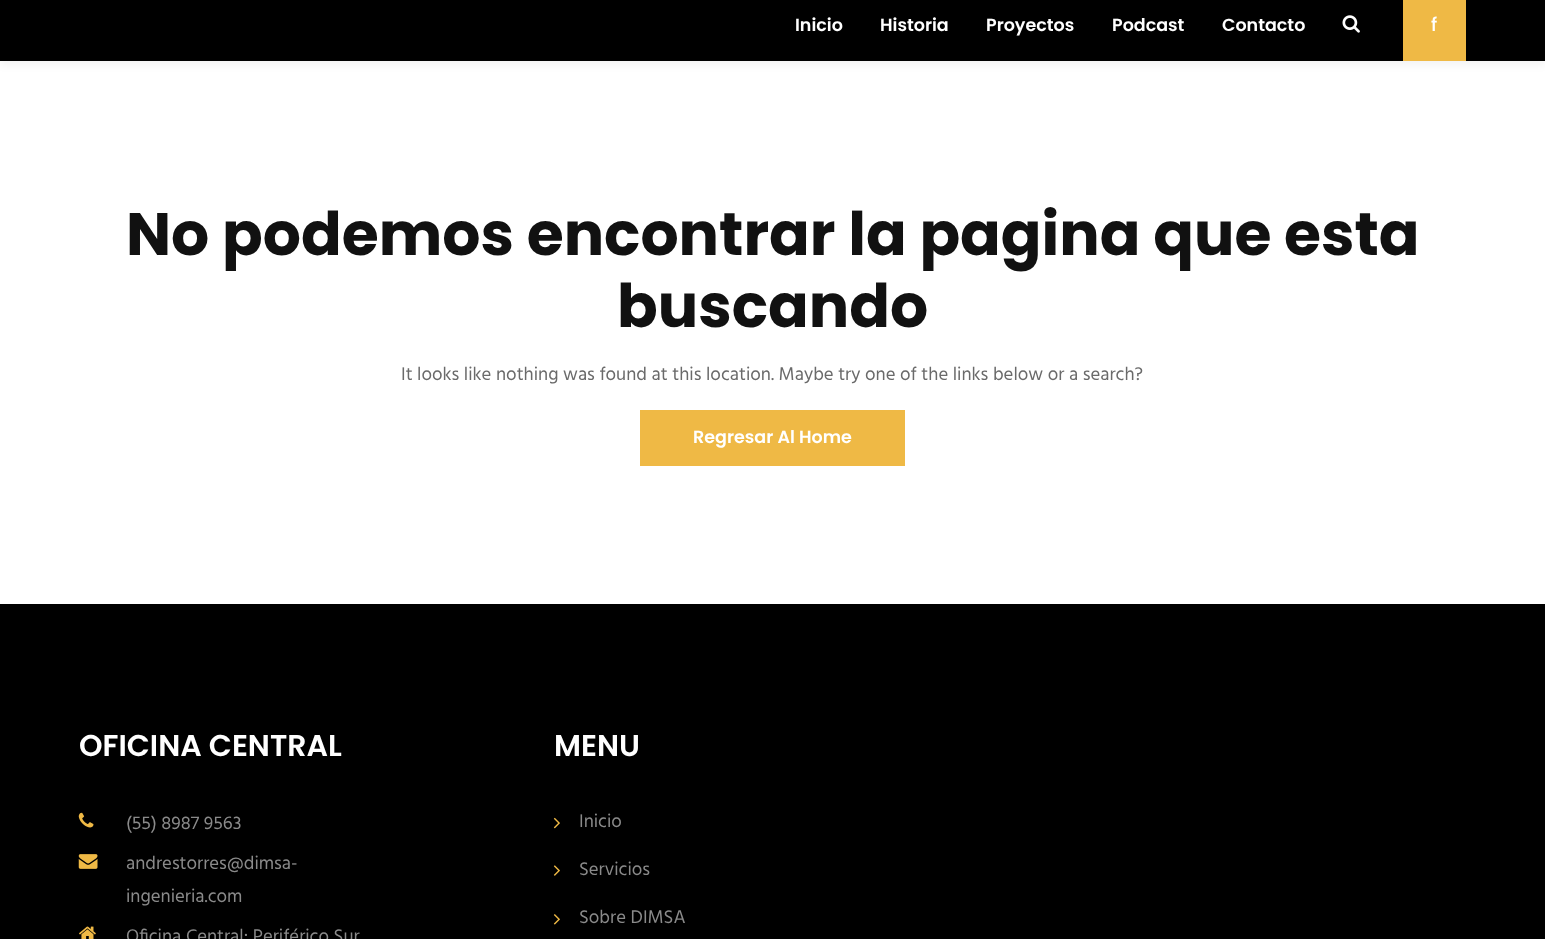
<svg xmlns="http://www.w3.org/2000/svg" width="1545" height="939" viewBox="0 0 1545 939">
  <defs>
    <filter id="blur1" x="-50%" y="-200%" width="200%" height="500%"><feGaussianBlur stdDeviation="4"/></filter>
  </defs>
  <rect width="100%" height="100%" fill="#ffffff"/>
  <rect x="0" y="-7" width="1545" height="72" fill="#000000" fill-opacity="0.05" filter="url(#blur1)"/>
  <rect x="0" y="0" width="1545" height="61" fill="#000000"/>
  <text x="795" y="31" font-family="Poppins" font-size="17.5" font-weight="600" fill="#ffffff">Inicio</text>
  <text x="880" y="31" font-family="Poppins" font-size="17.5" font-weight="600" fill="#ffffff">Historia</text>
  <text x="986" y="31" font-family="Poppins" font-size="17.5" font-weight="600" fill="#ffffff">Proyectos</text>
  <text x="1112" y="31" font-family="Poppins" font-size="17.5" font-weight="600" fill="#ffffff">Podcast</text>
  <text x="1222" y="31" font-family="Poppins" font-size="17.5" font-weight="600" fill="#ffffff">Contacto</text>
  <image x="1342" y="15" width="18" height="18" href="img1.png"/>
  <rect x="1403" y="0" width="63" height="61" fill="#efb945"/>
  <text x="1431" y="31" font-family="Poppins" font-size="18.75" font-weight="500" fill="#ffffff">f</text>
  <text x="126" y="255" font-family="Poppins" font-size="60" font-weight="bold" fill="#111111">No podemos encontrar la pagina que esta</text>
  <text x="617" y="327" font-family="Poppins" font-size="60" font-weight="bold" fill="#111111">buscando</text>
  <text x="401" y="380" font-family="Hind" font-size="18.75" fill="#6a6a6a">It looks like nothing was found at this location. Maybe try one of the links below or a search?</text>
  <rect x="640" y="410" width="265" height="56" fill="#efb945"/>
  <text x="693" y="443" font-family="Poppins" font-size="17.5" font-weight="600" fill="#ffffff">Regresar Al Home</text>
  <rect x="0" y="604" width="1545" height="335" fill="#000000"/>
  <text x="79" y="756" font-family="Poppins" font-size="30" font-weight="600" fill="#ffffff">OFICINA CENTRAL</text>
  <image x="78" y="812" width="16" height="16" href="img2.png"/>
  <text x="126" y="829" font-family="Hind" font-size="18.75" fill="#8a8a8a">(55) 8987 9563</text>
  <image x="78" y="854" width="20" height="15" href="img3.png"/>
  <text x="126" y="869" font-family="Hind" font-size="18.75" fill="#8a8a8a">andrestorres@dimsa-</text>
  <text x="126" y="902" font-family="Hind" font-size="18.75" fill="#8a8a8a">ingenieria.com</text>
  <image x="79" y="926" width="17" height="13" href="img4.png"/>
  <text x="126" y="942" font-family="Hind" font-size="18.75" fill="#8a8a8a">Oficina Central: Periférico Sur</text>
  <text x="554" y="756" font-family="Poppins" font-size="30" font-weight="600" fill="#ffffff">MENU</text>
  <image x="553" y="817" width="7" height="12" href="img5.png"/>
  <text x="579" y="827" font-family="Hind" font-size="18.75" fill="#8a8a8a">Inicio</text>
  <image x="553" y="865" width="7" height="11" href="img6.png"/>
  <text x="579" y="875" font-family="Hind" font-size="18.75" fill="#8a8a8a">Servicios</text>
  <image x="553" y="914" width="7" height="11" href="img7.png"/>
  <text x="579" y="923" font-family="Hind" font-size="18.75" fill="#8a8a8a">Sobre DIMSA</text>
</svg>
